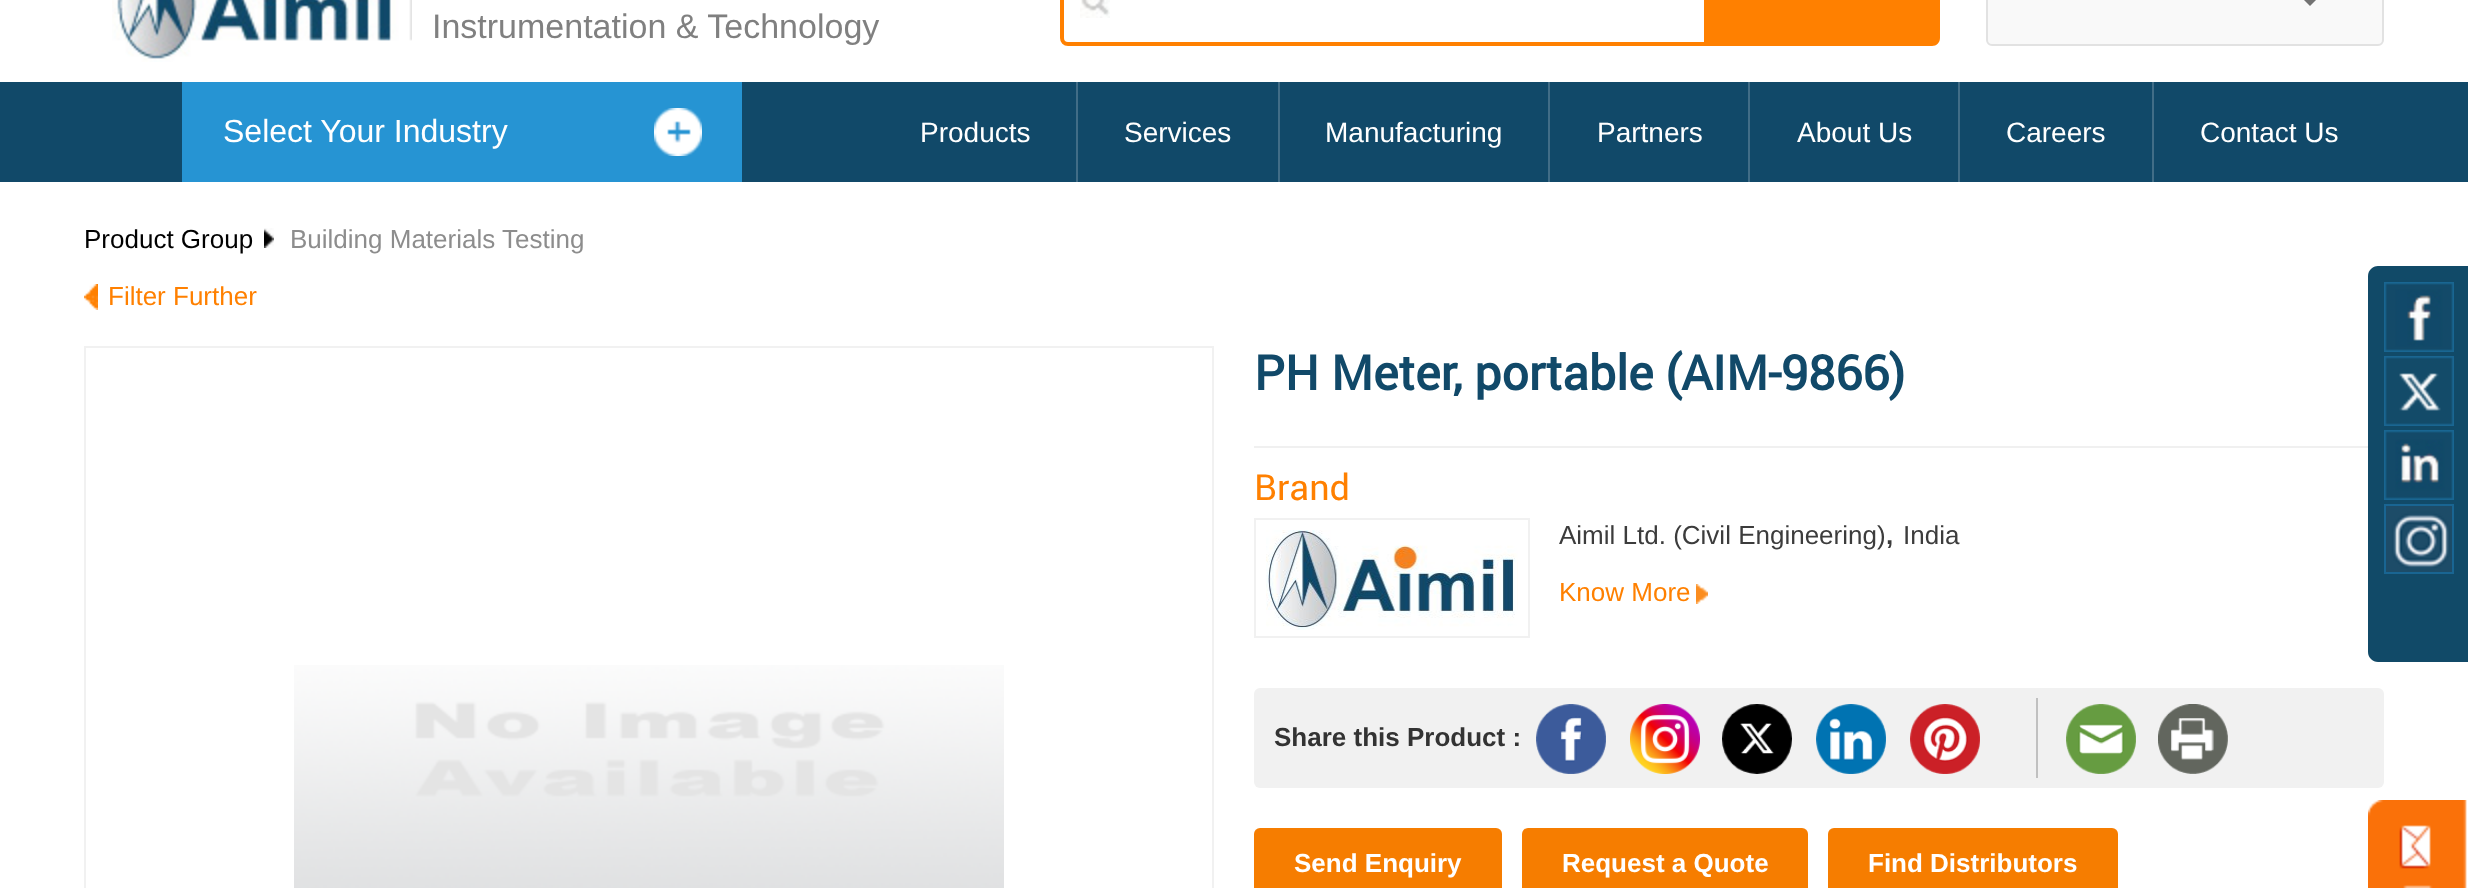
<svg xmlns="http://www.w3.org/2000/svg" width="2468" height="888" viewBox="0 0 2468 888">
  <rect width="100%" height="100%" fill="#ffffff"/>
  <image x="112" y="0" width="300" height="62" href="img1.png"/>
  <text x="432" y="38" font-family="Liberation Sans" font-size="34" fill="#808080">Instrumentation &amp; Technology</text>
  <image x="1080" y="0" width="30" height="18" href="img2.png"/>
  <path d="M1068-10H1706V44H1068C1064.5 44 1062 41.5 1062 38V-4C1062-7.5 1064.5-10 1068-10Z" fill="none" stroke="#ff8000" stroke-width="4"/>
  <path d="M1708-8H1932C1936.5-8 1940-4.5 1940 0V38C1940 42.5 1936.5 46 1932 46H1708Z" fill="#ff8000"/>
  <rect x="1987" y="-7" width="396" height="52" rx="5" fill="#f9f9f9" stroke="#e2e2e2" stroke-width="2"/>
  <path d="M2302-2H2318L2310 6Z" fill="#737373"/>
  <rect x="0" y="82" width="2468" height="100" fill="#114969"/>
  <rect x="182" y="82" width="560" height="100" fill="#2694d3"/>
  <image x="654" y="108" width="48" height="48" href="img3.png"/>
  <text x="223" y="142" font-family="Liberation Sans" font-size="32" fill="#ffffff">Select Your Industry</text>
  <rect x="1076" y="82" width="2" height="100" fill="#416d87"/>
  <text x="920" y="142" font-family="Liberation Sans" font-size="28" fill="#ffffff">Products</text>
  <rect x="1278" y="82" width="2" height="100" fill="#416d87"/>
  <text x="1124" y="142" font-family="Liberation Sans" font-size="28" fill="#ffffff">Services</text>
  <rect x="1548" y="82" width="2" height="100" fill="#416d87"/>
  <text x="1325" y="142" font-family="Liberation Sans" font-size="28" fill="#ffffff">Manufacturing</text>
  <rect x="1748" y="82" width="2" height="100" fill="#416d87"/>
  <text x="1597" y="142" font-family="Liberation Sans" font-size="28" fill="#ffffff">Partners</text>
  <rect x="1958" y="82" width="2" height="100" fill="#416d87"/>
  <text x="1797" y="142" font-family="Liberation Sans" font-size="28" fill="#ffffff">About Us</text>
  <rect x="2152" y="82" width="2" height="100" fill="#416d87"/>
  <text x="2006" y="142" font-family="Liberation Sans" font-size="28" fill="#ffffff">Careers</text>
  <text x="2200" y="142" font-family="Liberation Sans" font-size="28" fill="#ffffff">Contact Us</text>
  <path d="M2378 266H2468V662H2378C2372.5 662 2368 657.5 2368 652V276C2368 270.5 2372.5 266 2378 266Z" fill="#114a68"/>
  <image x="2384" y="282" width="70" height="70" href="img4.png"/>
  <image x="2384" y="356" width="70" height="70" href="img5.png"/>
  <image x="2384" y="430" width="70" height="70" href="img6.png"/>
  <image x="2386" y="506" width="66" height="66" href="img7.png"/>
  <rect x="2385" y="505" width="68" height="68" fill="none" stroke="#196592" stroke-width="2"/>
  <image x="2368" y="800" width="99" height="88" href="img8.png"/>
  <text x="84" y="248" font-family="Liberation Sans" font-size="26" fill="#000000">Product Group</text>
  <image x="264" y="228" width="10" height="20" href="img9.png"/>
  <text x="290" y="248" font-family="Liberation Sans" font-size="26" fill="#8d8d8d">Building Materials Testing</text>
  <image x="84" y="284" width="14" height="26" href="img10.png"/>
  <text x="108" y="305" font-family="Liberation Sans" font-size="26" fill="#ff8000">Filter Further</text>
  <rect x="85" y="347" width="1128" height="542" fill="none" stroke="#f1f1f1" stroke-width="2"/>
  <image x="294" y="665" width="710" height="223" href="img11.png"/>
  <text x="1254" y="390" font-family="Roboto" font-size="48" font-weight="bold" fill="#114969">PH Meter, portable (AIM-9866)</text>
  <rect x="1254" y="446" width="1114" height="2" fill="#f0f0f0"/>
  <text x="1254" y="500" font-family="Roboto" font-size="36" fill="#ff8000">Brand</text>
  <rect x="1255" y="519" width="274" height="118" fill="none" stroke="#f1f1f1" stroke-width="2"/>
  <image x="1266" y="530" width="252" height="100" href="img12.png"/>
  <text x="1559" y="544" font-family="Liberation Sans" font-size="26" fill="#3c3c3c">Aimil Ltd. (Civil Engineering)</text>
  <text x="1886" y="544" font-family="Liberation Sans" font-size="26" font-weight="bold" fill="#3c3c3c">,</text>
  <text x="1903" y="544" font-family="Liberation Sans" font-size="26" fill="#3c3c3c">India</text>
  <image x="1696" y="584" width="12" height="20" href="img13.png"/>
  <text x="1559" y="601" font-family="Liberation Sans" font-size="26" fill="#ff8000">Know More</text>
  <rect x="1254" y="688" width="1130" height="100" rx="6" fill="#f1f1f1"/>
  <rect x="2036" y="698" width="2" height="80" fill="#c0c0c0"/>
  <text x="1274" y="746" font-family="Liberation Sans" font-size="26" font-weight="bold" fill="#333333">Share this Product :</text>
  <image x="1536" y="704" width="70" height="70" href="img14.png"/>
  <image x="1630" y="704" width="70" height="70" href="img15.png"/>
  <image x="1722" y="704" width="70" height="70" href="img16.png"/>
  <image x="1816" y="704" width="70" height="70" href="img17.png"/>
  <image x="1910" y="704" width="70" height="70" href="img18.png"/>
  <image x="2066" y="704" width="70" height="70" href="img19.png"/>
  <image x="2158" y="704" width="70" height="70" href="img20.png"/>
  <rect x="1254" y="828" width="248" height="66" rx="6" fill="#f67d00"/>
  <text x="1294" y="872" font-family="Liberation Sans" font-size="26" font-weight="bold" fill="#ffffff">Send Enquiry</text>
  <rect x="1522" y="828" width="286" height="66" rx="6" fill="#f67d00"/>
  <text x="1562" y="872" font-family="Liberation Sans" font-size="26" font-weight="bold" fill="#ffffff">Request a Quote</text>
  <rect x="1828" y="828" width="290" height="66" rx="6" fill="#f67d00"/>
  <text x="1868" y="872" font-family="Liberation Sans" font-size="26" font-weight="bold" fill="#ffffff">Find Distributors</text>
</svg>
